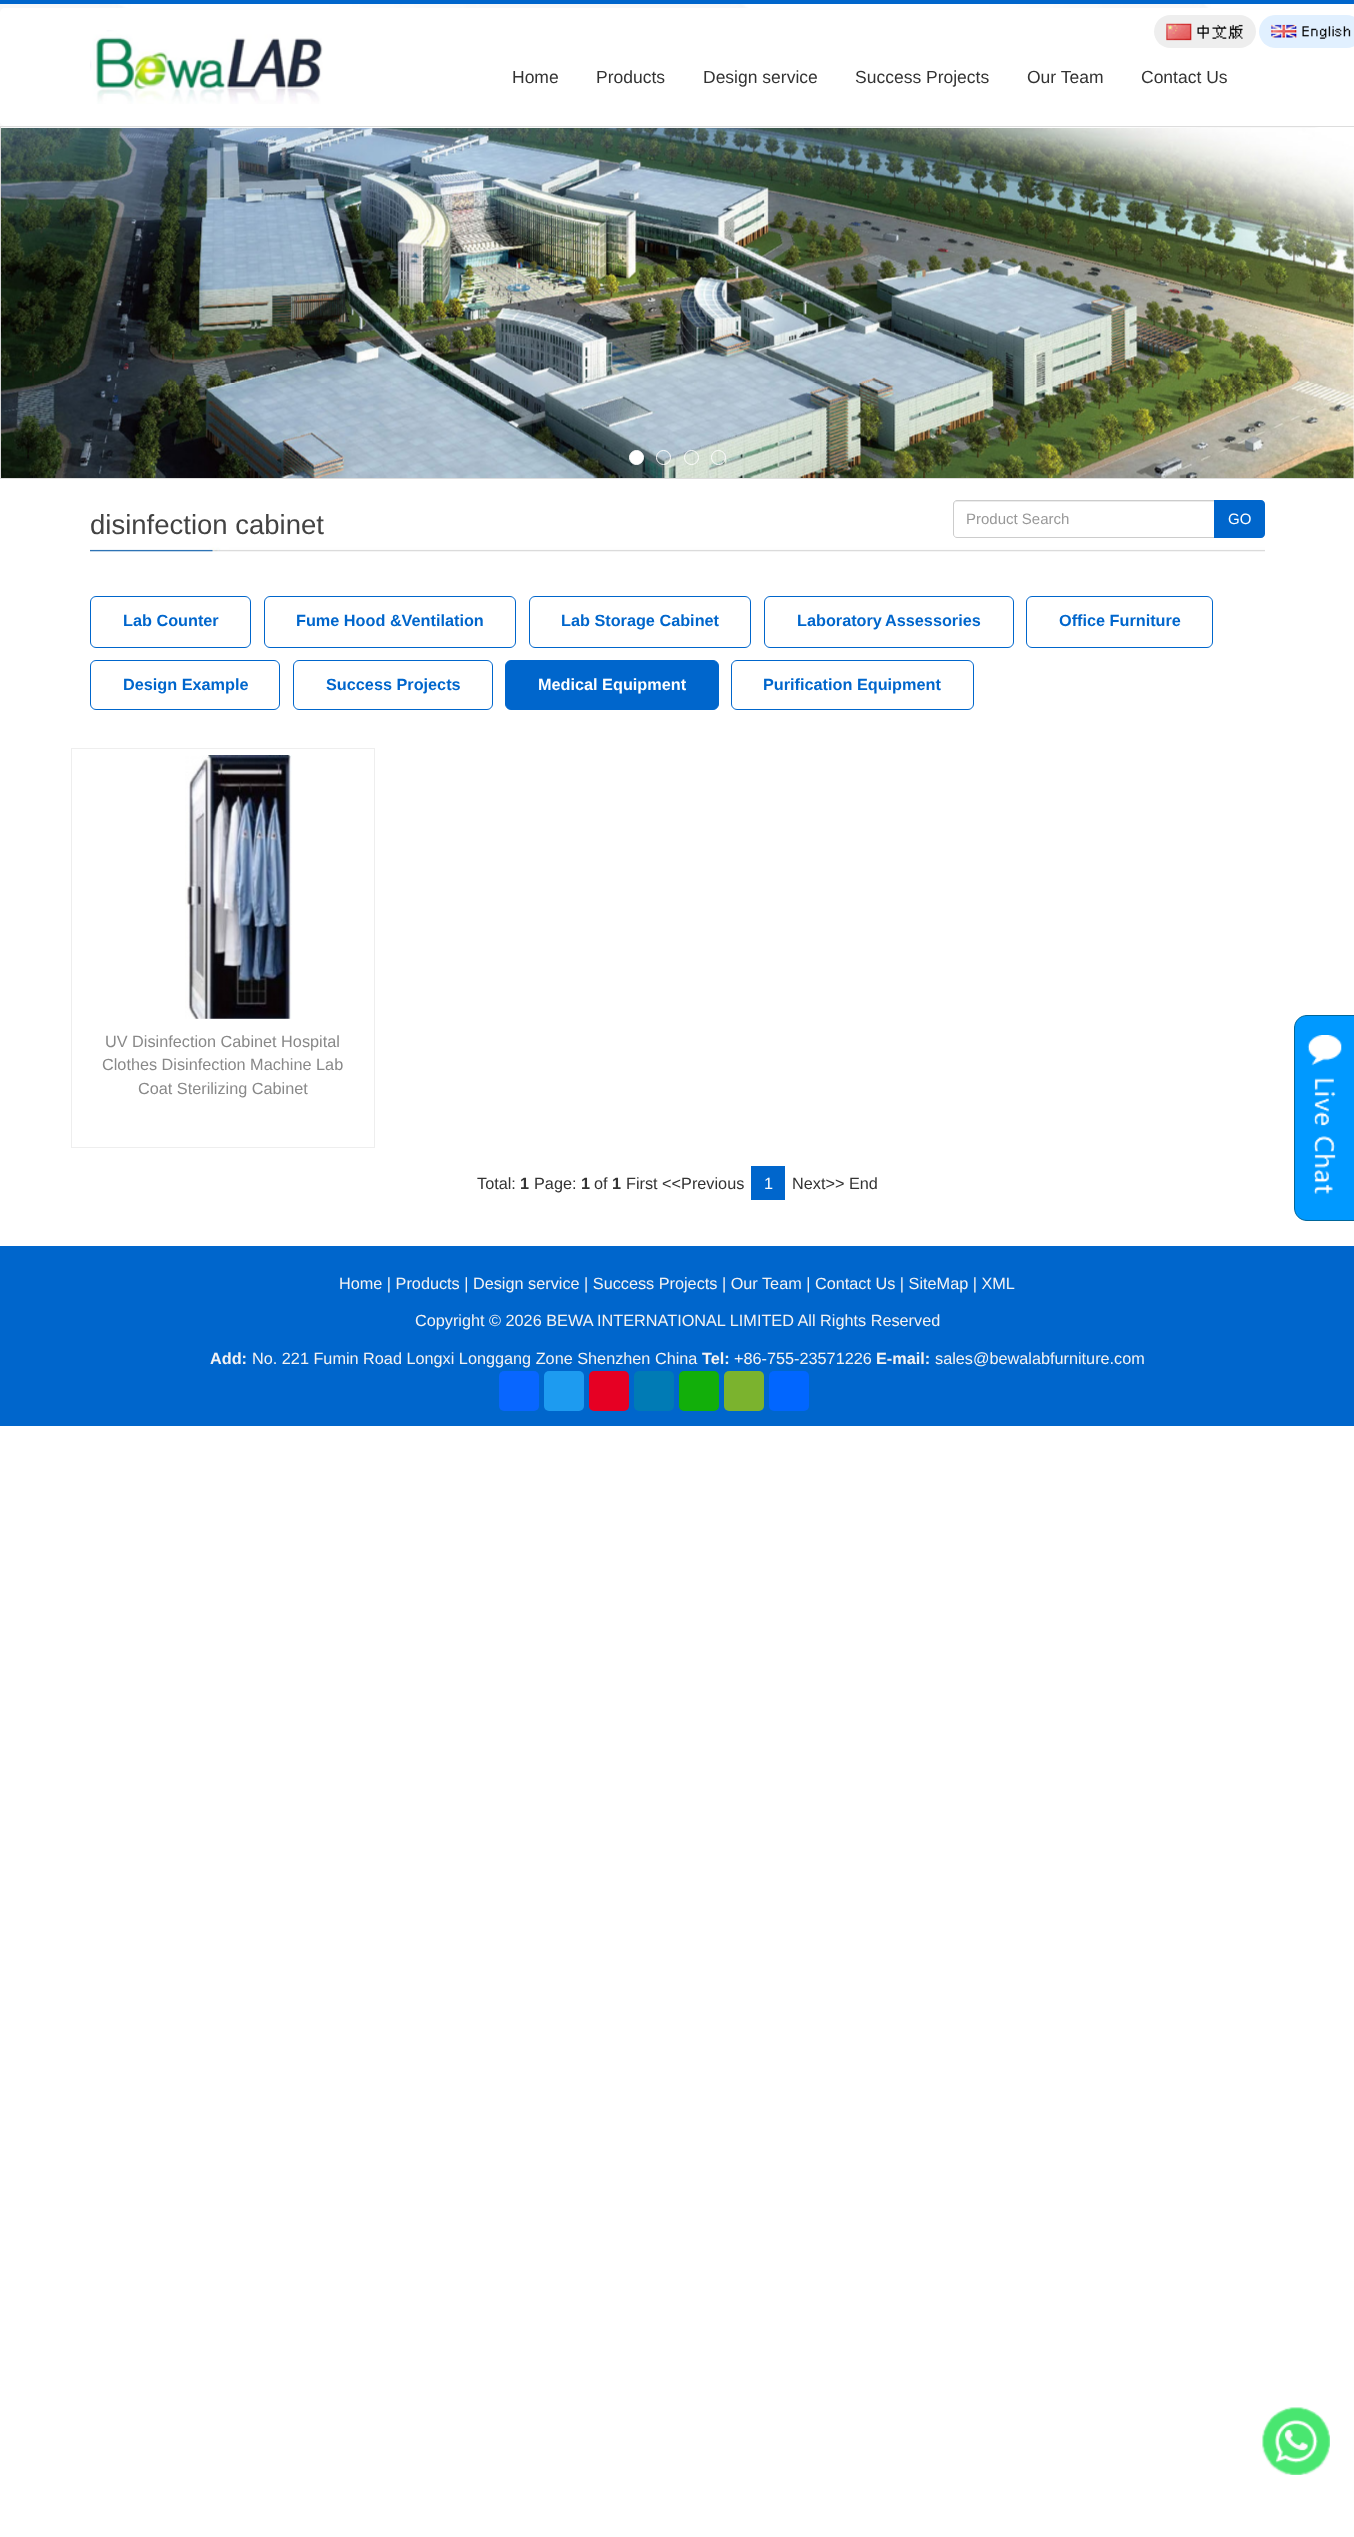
<svg xmlns="http://www.w3.org/2000/svg" width="1354" height="2537" viewBox="0 0 1354 2537">
  <rect width="100%" height="100%" fill="#ffffff"/>
  <image x="0" y="4" width="1354" height="466" href="img1.png"/>
  <rect x="0" y="0" width="1354" height="4" fill="#0066cc"/>
  <rect x="0" y="8" width="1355" height="118" rx="5" fill="#ffffff"/>
  <image x="90" y="30" width="233" height="74" href="img2.png"/>
  <text x="512" y="83" font-family="Liberation Sans" font-size="17.5" fill="#333333">Home</text>
  <text x="596" y="83" font-family="Liberation Sans" font-size="17.5" fill="#333333">Products</text>
  <text x="703" y="83" font-family="Liberation Sans" font-size="17.5" fill="#333333">Design service</text>
  <text x="855" y="83" font-family="Liberation Sans" font-size="17.5" fill="#333333">Success Projects</text>
  <text x="1027" y="83" font-family="Liberation Sans" font-size="17.5" fill="#333333">Our Team</text>
  <text x="1141" y="83" font-family="Liberation Sans" font-size="17.5" fill="#333333">Contact Us</text>
  <rect x="1154" y="15" width="102" height="33" rx="16.5" fill="#eeeeee"/>
  <image x="1166" y="23" width="77" height="18" href="img3.png"/>
  <rect x="1259" y="15" width="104" height="33" rx="16.5" fill="#e1f0ff"/>
  <image x="1271" y="24" width="80" height="15" href="img4.png"/>
  <rect x="0.5" y="126.5" width="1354" height="352" fill="none" stroke="#dddddd"/>
  <image x="1" y="128" width="1353" height="350" href="img5.png"/>
  <circle cx="636.5" cy="457.5" r="7" fill="#ffffff" stroke="#ffffff"/>
  <circle cx="663.5" cy="457.5" r="7" fill="none" stroke="#ffffff"/>
  <circle cx="691.5" cy="457.5" r="7" fill="none" stroke="#ffffff"/>
  <circle cx="718.5" cy="457.5" r="7" fill="none" stroke="#ffffff"/>
  <image x="90" y="547" width="1175" height="5" href="img6.png"/>
  <text x="90" y="534" font-family="Liberation Sans" font-size="27.5" fill="#434343">disinfection cabinet</text>
  <path d="M956 502H1214V501H956C955 501 954 502 954 504V505C954 504 955 502 956 502Z" fill="#ececec"/>
  <path d="M957 500.5H1214.5V537.5H957C955 537.5 953.5 536 953.5 534V504C953.5 502 955 500.5 957 500.5Z" fill="none" stroke="#cccccc"/>
  <text x="966" y="524" font-family="Liberation Sans" font-size="15" fill="#999999">Product Search</text>
  <path d="M1214 500H1261C1263 500 1265 502 1265 504V534C1265 536 1263 538 1261 538H1214Z" fill="#0066cc"/>
  <text x="1228" y="524" font-family="Liberation Sans" font-size="15" fill="#ffffff">GO</text>
  <rect x="90.5" y="596.5" width="160" height="51" rx="5.5" fill="none" stroke="#0066cc"/>
  <text x="123" y="626" font-family="Liberation Sans" font-size="16.25" font-weight="bold" fill="#0066cc">Lab Counter</text>
  <rect x="264.5" y="596.5" width="251" height="51" rx="5.5" fill="none" stroke="#0066cc"/>
  <text x="296" y="626" font-family="Liberation Sans" font-size="16.25" font-weight="bold" fill="#0066cc">Fume Hood &amp;Ventilation</text>
  <rect x="529.5" y="596.5" width="221" height="51" rx="5.5" fill="none" stroke="#0066cc"/>
  <text x="561" y="626" font-family="Liberation Sans" font-size="16.25" font-weight="bold" fill="#0066cc">Lab Storage Cabinet</text>
  <rect x="764.5" y="596.5" width="249" height="51" rx="5.5" fill="none" stroke="#0066cc"/>
  <text x="797" y="626" font-family="Liberation Sans" font-size="16.25" font-weight="bold" fill="#0066cc">Laboratory</text>
  <text x="885" y="626" font-family="Liberation Sans" font-size="16.25" font-weight="bold" fill="#0066cc">Assessories</text>
  <rect x="1026.5" y="596.5" width="186" height="51" rx="5.5" fill="none" stroke="#0066cc"/>
  <text x="1059" y="626" font-family="Liberation Sans" font-size="16.25" font-weight="bold" fill="#0066cc">Office Furniture</text>
  <rect x="90.5" y="660.5" width="189" height="49" rx="5.5" fill="none" stroke="#0066cc"/>
  <text x="123" y="690" font-family="Liberation Sans" font-size="16.25" font-weight="bold" fill="#0066cc">Design Example</text>
  <rect x="293.5" y="660.5" width="199" height="49" rx="5.5" fill="none" stroke="#0066cc"/>
  <text x="326" y="690" font-family="Liberation Sans" font-size="16.25" font-weight="bold" fill="#0066cc">Success Projects</text>
  <rect x="505.5" y="660.5" width="213" height="49" rx="5.5" fill="#0066cc" stroke="#0066cc"/>
  <text x="538" y="690" font-family="Liberation Sans" font-size="16.25" font-weight="bold" fill="#ffffff">Medical Equipment</text>
  <rect x="731.5" y="660.5" width="242" height="49" rx="5.5" fill="none" stroke="#0066cc"/>
  <text x="763" y="690" font-family="Liberation Sans" font-size="16.25" font-weight="bold" fill="#0066cc">Purification Equipment</text>
  <rect x="71.5" y="748.5" width="303" height="399" fill="none" stroke="#eeeeee"/>
  <image x="185" y="755" width="107" height="264" href="img7.png"/>
  <text x="105" y="1047" font-family="Liberation Sans" font-size="16.25" fill="#898989">UV Disinfection Cabinet Hospital</text>
  <text x="102" y="1070" font-family="Liberation Sans" font-size="16.25" fill="#898989">Clothes Disinfection Machine Lab</text>
  <text x="138" y="1094" font-family="Liberation Sans" font-size="16.25" fill="#898989">Coat Sterilizing Cabinet</text>
  <text x="477" y="1189" font-family="Liberation Sans" font-size="16.25" fill="#333333">Total:</text>
  <text x="520" y="1189" font-family="Liberation Sans" font-size="16.25" font-weight="bold" fill="#333333">1</text>
  <text x="534" y="1189" font-family="Liberation Sans" font-size="16.25" fill="#333333">Page:</text>
  <text x="581" y="1189" font-family="Liberation Sans" font-size="16.25" font-weight="bold" fill="#333333">1</text>
  <text x="594" y="1189" font-family="Liberation Sans" font-size="16.25" fill="#333333">of</text>
  <text x="612" y="1189" font-family="Liberation Sans" font-size="16.25" font-weight="bold" fill="#333333">1</text>
  <text x="626" y="1189" font-family="Liberation Sans" font-size="16.25" fill="#333333">First &lt;&lt;Previous</text>
  <rect x="751" y="1166" width="34" height="34" fill="#0066cc"/>
  <text x="764" y="1189" font-family="Liberation Sans" font-size="16.25" fill="#ffffff">1</text>
  <text x="792" y="1189" font-family="Liberation Sans" font-size="16.25" fill="#333333">Next&gt;&gt; End</text>
  <path d="M1307 1015.5H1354.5V1220.5H1307C1300 1220.5 1294.5 1215 1294.5 1208V1028C1294.5 1021 1300 1015.5 1307 1015.5Z" fill="#0099ff" stroke="#006699"/>
  <image x="1307" y="1035" width="35" height="159" href="img8.png"/>
  <rect x="0" y="1246" width="1354" height="180" fill="#0066cc"/>
  <text x="339" y="1289" font-family="Liberation Sans" font-size="16.25" fill="#f4f3f3">Home | Products | Design service | Success Projects | Our Team | Contact Us | SiteMap | XML</text>
  <text x="415" y="1326" font-family="Liberation Sans" font-size="16.25" fill="#f4f3f3">Copyright © 2026 BEWA INTERNATIONAL LIMITED All Rights Reserved</text>
  <text x="210" y="1364" font-family="Liberation Sans" font-size="16.25" font-weight="bold" fill="#f4f3f3">Add:</text>
  <text x="252" y="1364" font-family="Liberation Sans" font-size="16.25" fill="#f4f3f3">No. 221 Fumin Road Longxi Longgang Zone Shenzhen China</text>
  <text x="702" y="1364" font-family="Liberation Sans" font-size="16.25" font-weight="bold" fill="#f4f3f3">Tel:</text>
  <text x="734" y="1364" font-family="Liberation Sans" font-size="16.25" fill="#f4f3f3">+86-755-23571226</text>
  <text x="876" y="1364" font-family="Liberation Sans" font-size="16.25" font-weight="bold" fill="#f4f3f3">E-mail:</text>
  <text x="935" y="1364" font-family="Liberation Sans" font-size="16.25" fill="#f4f3f3">sales@bewalabfurniture.com</text>
  <rect x="499" y="1371" width="40" height="40" rx="5" fill="#0866ff"/>
  <rect x="544" y="1371" width="40" height="40" rx="5" fill="#1d9bf0"/>
  <rect x="589" y="1371" width="40" height="40" rx="5" fill="#e60023"/>
  <rect x="634" y="1371" width="40" height="40" rx="5" fill="#007bb5"/>
  <rect x="679" y="1371" width="40" height="40" rx="5" fill="#12af0a"/>
  <rect x="724" y="1371" width="40" height="40" rx="5" fill="#7bb32e"/>
  <rect x="769" y="1371" width="40" height="40" rx="5" fill="#0166ff"/>
  <image x="1262" y="2407" width="68" height="68" href="img9.png"/>
</svg>
